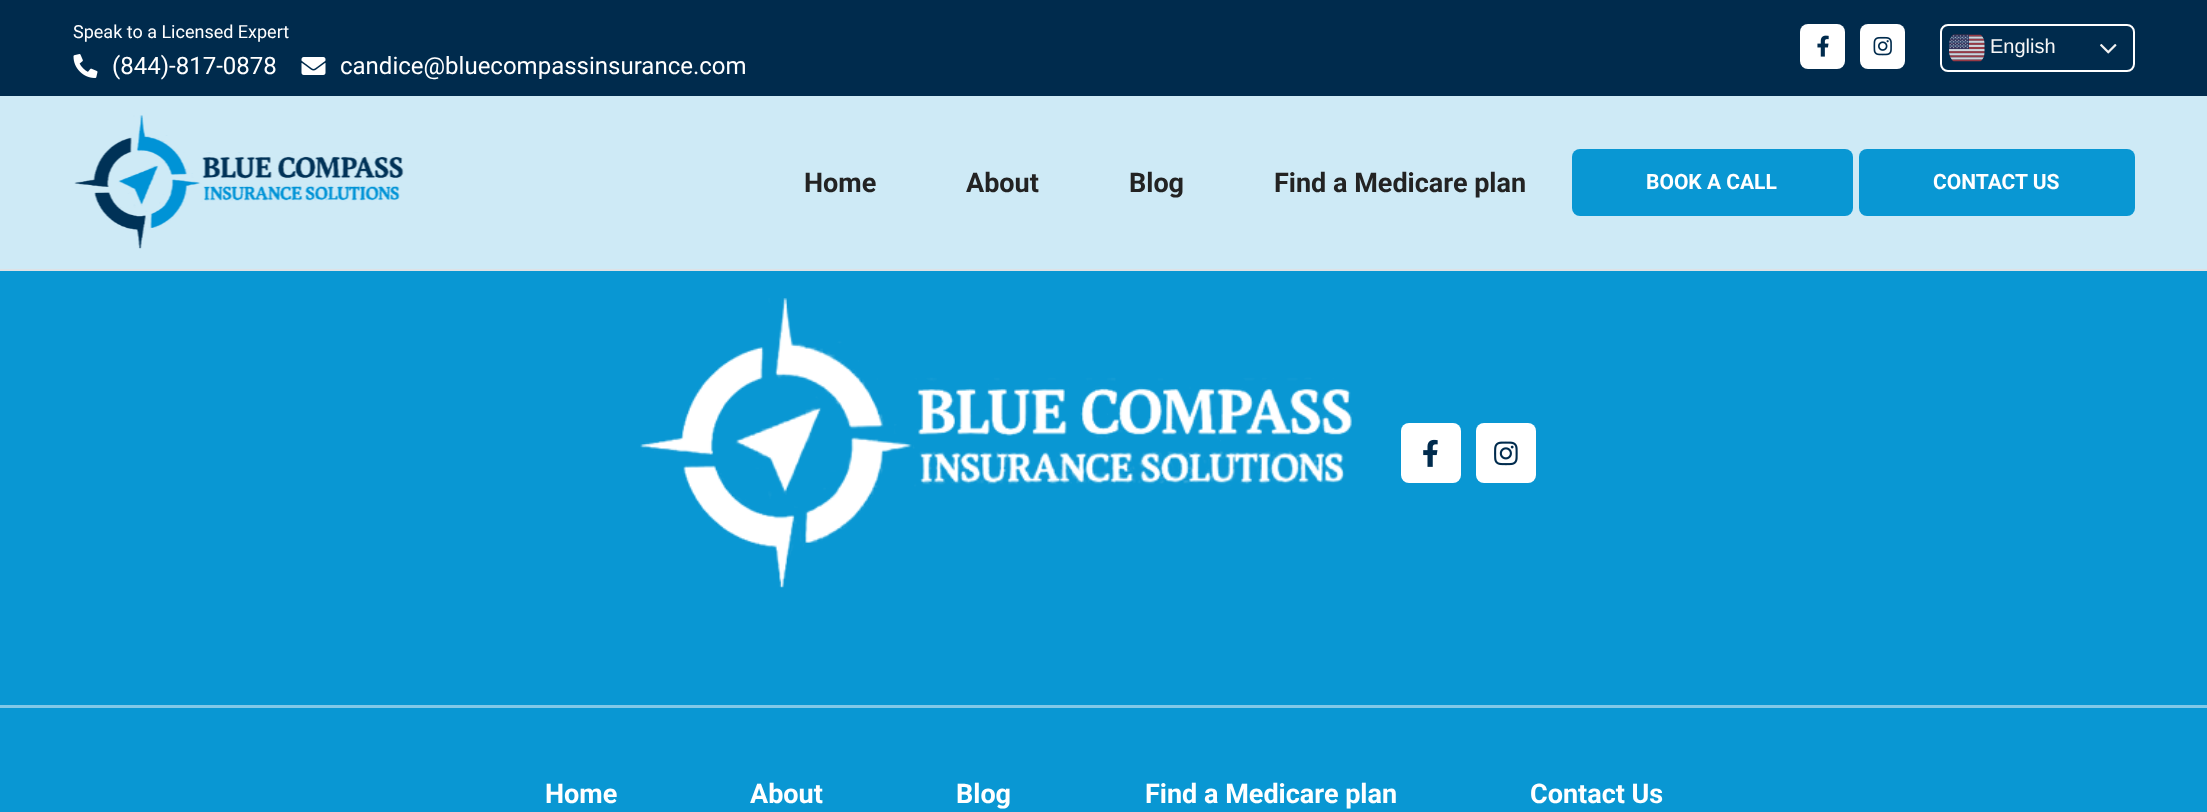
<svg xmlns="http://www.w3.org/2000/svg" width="2207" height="812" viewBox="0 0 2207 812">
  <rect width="100%" height="100%" fill="#0997d3"/>
  <rect x="0" y="0" width="2207" height="96" fill="#002b4d"/>
  <text x="73" y="38" font-family="Roboto" font-size="18" fill="#ffffff">Speak to a Licensed Expert</text>
  <image x="73" y="54" width="25" height="24" href="img1.png"/>
  <text x="112" y="74" font-family="Roboto" font-size="24" fill="#ffffff">(844)-817-0878</text>
  <image x="301" y="57" width="25" height="18" href="img2.png"/>
  <text x="340" y="74" font-family="Roboto" font-size="24" fill="#ffffff">candice@bluecompassinsurance.com</text>
  <rect x="1800" y="24" width="45" height="45" rx="8" fill="#ffffff"/>
  <image x="1817" y="35" width="12" height="22" href="img3.png"/>
  <rect x="1860" y="24" width="45" height="45" rx="8" fill="#ffffff"/>
  <image x="1873" y="36" width="19" height="20" href="img4.png"/>
  <rect x="1941" y="25" width="193" height="46" rx="7" fill="none" stroke="#ffffff" stroke-width="2"/>
  <image x="1949" y="34" width="36" height="28" href="img5.png"/>
  <text x="1990" y="53" font-family="Liberation Sans" font-size="20" fill="#f7f7f7">English</text>
  <image x="2100" y="44" width="17" height="10" href="img6.png"/>
  <rect x="0" y="96" width="2207" height="173" fill="#ceeaf6"/>
  <rect x="0" y="269" width="2207" height="2" fill="#dee2e6"/>
  <image x="74" y="115" width="330" height="134" href="img7.png"/>
  <text x="804" y="192" font-family="Roboto" font-size="27" font-weight="bold" fill="#232323">Home</text>
  <text x="966" y="192" font-family="Roboto" font-size="27" font-weight="bold" fill="#232323">About</text>
  <text x="1129" y="192" font-family="Roboto" font-size="27" font-weight="bold" fill="#232323">Blog</text>
  <text x="1274" y="192" font-family="Roboto" font-size="27" font-weight="bold" fill="#232323">Find a Medicare plan</text>
  <rect x="1572" y="149" width="281" height="67" rx="8" fill="#0997d3"/>
  <text x="1646" y="189" font-family="Roboto" font-size="21" font-weight="bold" fill="#ffffff">BOOK A CALL</text>
  <rect x="1859" y="149" width="276" height="67" rx="8" fill="#0997d3"/>
  <text x="1933" y="189" font-family="Roboto" font-size="21" font-weight="bold" fill="#ffffff">CONTACT US</text>
  <image x="640" y="298" width="713" height="290" href="img8.png"/>
  <rect x="1401" y="423" width="60" height="60" rx="8" fill="#ffffff"/>
  <image x="1423" y="439" width="15" height="28" href="img9.png"/>
  <rect x="1476" y="423" width="60" height="60" rx="8" fill="#ffffff"/>
  <image x="1494" y="441" width="24" height="25" href="img10.png"/>
  <rect x="0" y="705" width="2207" height="3" fill="#81c8e7"/>
  <text x="545" y="803" font-family="Roboto" font-size="27" font-weight="bold" fill="#ffffff">Home</text>
  <text x="750" y="803" font-family="Roboto" font-size="27" font-weight="bold" fill="#ffffff">About</text>
  <text x="956" y="803" font-family="Roboto" font-size="27" font-weight="bold" fill="#ffffff">Blog</text>
  <text x="1145" y="803" font-family="Roboto" font-size="27" font-weight="bold" fill="#ffffff">Find a Medicare plan</text>
  <text x="1530" y="803" font-family="Roboto" font-size="27" font-weight="bold" fill="#ffffff">Contact Us</text>
</svg>
